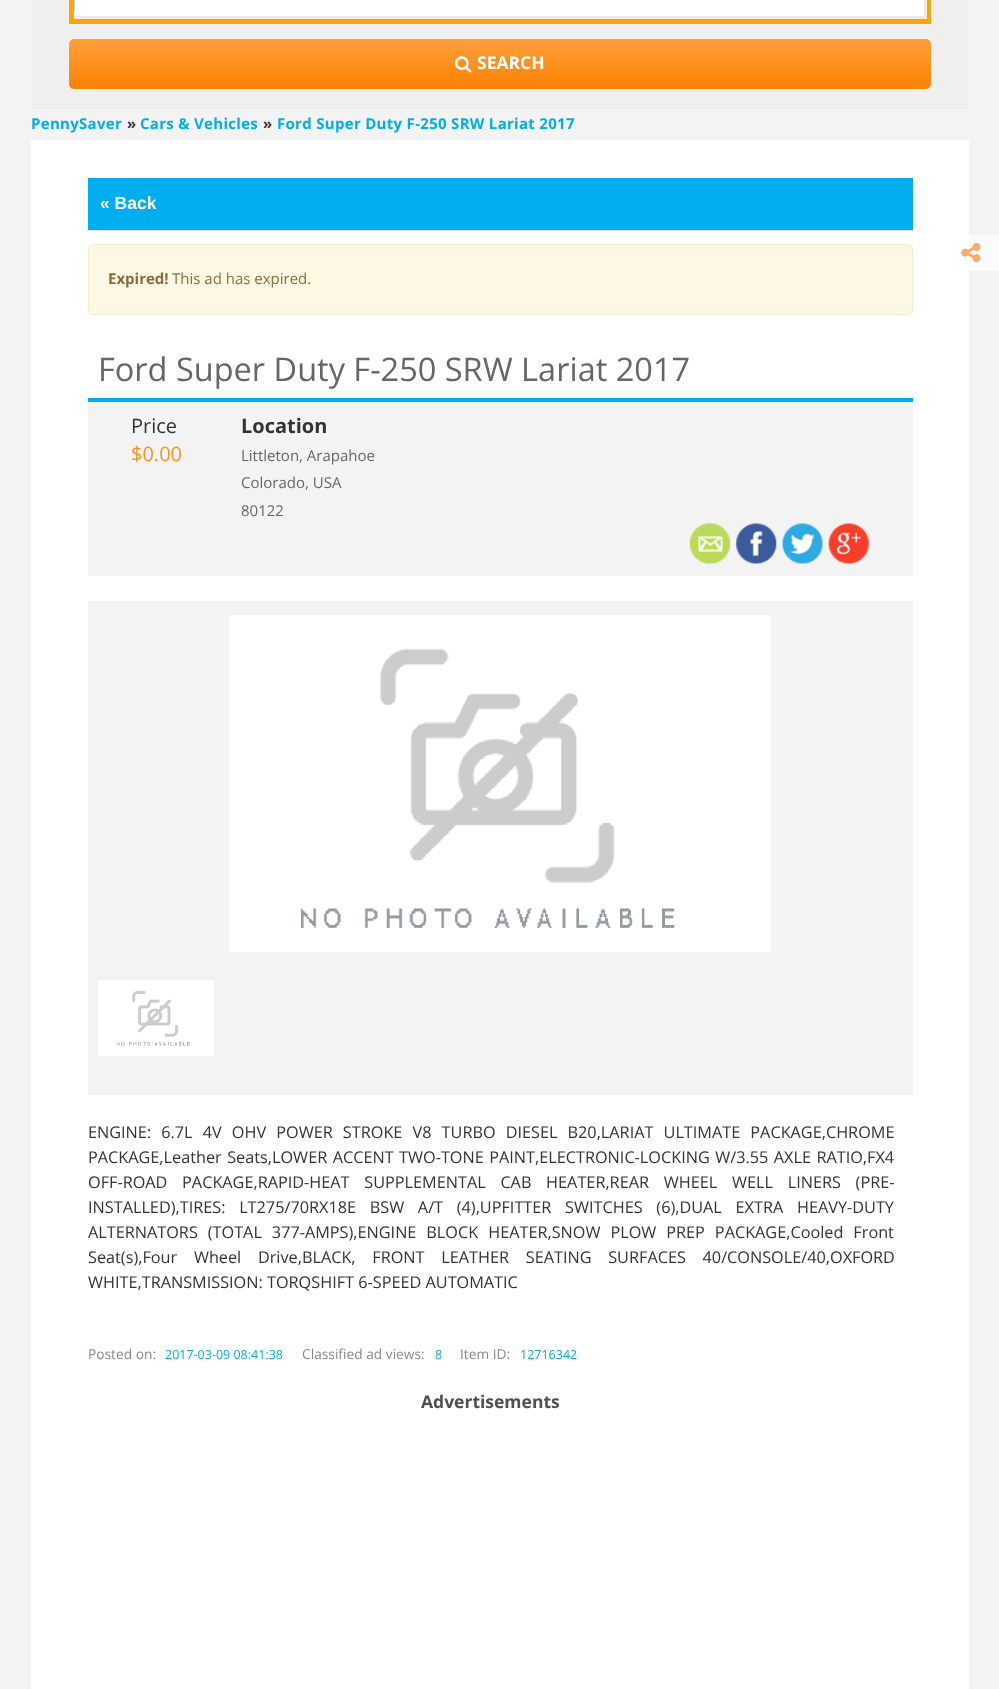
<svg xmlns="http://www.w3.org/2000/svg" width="999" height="1689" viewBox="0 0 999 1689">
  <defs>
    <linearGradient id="g1" gradientUnits="userSpaceOnUse" x1="69" y1="89" x2="69" y2="39"><stop offset="0" stop-color="#fc8202"/><stop offset="0.99" stop-color="#ff9f39"/></linearGradient>
  </defs>
  <rect width="100%" height="100%" fill="#f3f3f3"/>
  <rect x="969" y="235" width="30" height="36" fill="#fbfbfb"/>
  <rect x="31" y="0" width="938" height="109" fill="#efefef"/>
  <rect x="71.5" y="-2.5" width="857" height="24" fill="none" stroke="#ffa500" stroke-width="5"/>
  <rect x="74" y="0" width="850" height="16" fill="#ffffff"/>
  <rect x="924" y="0" width="3" height="19" fill="#eaeaea"/>
  <rect x="74" y="16" width="852" height="3" fill="#eaeaea"/>
  <rect x="74" y="0" width="1" height="11" fill="#cccccc"/>
  <rect x="69" y="39" width="862" height="50" rx="5" fill="url(#g1)"/>
  <image x="455" y="56" width="17" height="17" href="img1.png"/>
  <text x="477" y="69" font-family="Open Sans" font-size="17.5" font-weight="bold" fill="#ffffff">SEARCH</text>
  <rect x="31" y="140" width="938" height="1549" fill="#ffffff"/>
  <image x="961" y="242" width="20" height="21" href="img2.png"/>
  <text x="31" y="129" font-family="Open Sans" font-size="15" font-weight="bold" letter-spacing="0.3" fill="#00aeef">PennySaver</text>
  <text x="127" y="129" font-family="Open Sans" font-size="15" font-weight="bold" letter-spacing="0.3" fill="#333333">»</text>
  <text x="140" y="129" font-family="Open Sans" font-size="15" font-weight="bold" letter-spacing="0.3" fill="#00aeef">Cars &amp; Vehicles</text>
  <text x="263" y="129" font-family="Open Sans" font-size="15" font-weight="bold" letter-spacing="0.3" fill="#333333">»</text>
  <text x="277" y="129" font-family="Open Sans" font-size="15" font-weight="bold" letter-spacing="0.3" fill="#00aeef">Ford Super Duty F-250 SRW Lariat 2017</text>
  <rect x="88" y="178" width="825" height="52" fill="#00aeef"/>
  <rect x="88" y="230" width="825" height="1" fill="#e5e5e5"/>
  <text x="100" y="209" font-family="Liberation Sans" font-size="17.5" font-weight="bold" fill="#ffffff">« Back</text>
  <rect x="88.5" y="244.5" width="824" height="70" rx="4.5" fill="#fcf8e3" stroke="#faebcc"/>
  <text x="108" y="284" font-family="Open Sans" font-size="15" font-weight="bold" fill="#8a6d3b">Expired!</text>
  <text x="172" y="284" font-family="Open Sans" font-size="15" fill="#8a6d3b">This ad has expired.</text>
  <rect x="88" y="398" width="825" height="4" fill="#00aeef"/>
  <text x="98" y="381" font-family="Open Sans" font-size="32.5" fill="#666666">Ford Super Duty F-250 SRW Lariat 2017</text>
  <rect x="88" y="402" width="825" height="174" fill="#f4f3f3"/>
  <text x="131" y="433" font-family="Open Sans" font-size="20" fill="#333333">Price</text>
  <text x="131" y="461" font-family="Open Sans" font-size="20" fill="#ff921e">$0.00</text>
  <text x="241" y="433" font-family="Open Sans" font-size="20" font-weight="bold" fill="#333333">Location</text>
  <text x="241" y="461" font-family="Open Sans" font-size="15" fill="#666666">Littleton, Arapahoe</text>
  <text x="241" y="488" font-family="Open Sans" font-size="15" fill="#666666">Colorado, USA</text>
  <text x="241" y="516" font-family="Open Sans" font-size="15" fill="#666666">80122</text>
  <image x="690" y="523" width="40" height="41" href="img3.png"/>
  <image x="736" y="523" width="41" height="41" href="img4.png"/>
  <image x="782" y="523" width="41" height="41" href="img5.png"/>
  <image x="828" y="523" width="41" height="41" href="img6.png"/>
  <rect x="88" y="601" width="825" height="494" fill="#f4f3f3"/>
  <image x="229" y="615" width="542" height="337" href="img7.png"/>
  <rect x="98" y="980" width="116" height="76" fill="#ffffff"/>
  <image x="116" y="990" width="74" height="56" href="img8.png"/>
  <text x="88" y="1138" word-spacing="5.9" font-family="Open Sans" font-size="16.25" fill="#333333">ENGINE: 6.7L 4V OHV POWER STROKE V8 TURBO DIESEL B20,LARIAT ULTIMATE PACKAGE,CHROME</text>
  <text x="88" y="1163" word-spacing="1.25" font-family="Open Sans" font-size="16.25" fill="#333333">PACKAGE,Leather Seats,LOWER ACCENT TWO-TONE PAINT,ELECTRONIC-LOCKING W/3.55 AXLE RATIO,FX4</text>
  <text x="88" y="1188" word-spacing="10.5" font-family="Open Sans" font-size="16.25" fill="#333333">OFF-ROAD PACKAGE,RAPID-HEAT SUPPLEMENTAL CAB HEATER,REAR WHEEL WELL LINERS (PRE-</text>
  <text x="88" y="1213" word-spacing="9.5" font-family="Open Sans" font-size="16.25" fill="#333333">INSTALLED),TIRES: LT275/70RX18E BSW A/T (4),UPFITTER SWITCHES (6),DUAL EXTRA HEAVY-DUTY</text>
  <text x="88" y="1238" word-spacing="5.75" font-family="Open Sans" font-size="16.25" fill="#333333">ALTERNATORS (TOTAL 377-AMPS),ENGINE BLOCK HEATER,SNOW PLOW PREP PACKAGE,Cooled Front</text>
  <text x="88" y="1263" word-spacing="12.5" font-family="Open Sans" font-size="16.25" fill="#333333">Seat(s),Four Wheel Drive,BLACK, FRONT LEATHER SEATING SURFACES 40/CONSOLE/40,OXFORD</text>
  <text x="88" y="1288" font-family="Open Sans" font-size="16.25" fill="#333333">WHITE,TRANSMISSION: TORQSHIFT 6-SPEED AUTOMATIC</text>
  <text x="88" y="1359" font-family="Open Sans" font-size="13.75" fill="#908884">Posted on:</text>
  <text x="165" y="1359" font-family="Open Sans" font-size="12.5" fill="#00aeef">2017-03-09 08:41:38</text>
  <text x="302" y="1359" font-family="Open Sans" font-size="13.75" fill="#908884">Classified ad views:</text>
  <text x="435" y="1359" font-family="Open Sans" font-size="12.5" fill="#00aeef">8</text>
  <text x="460" y="1359" font-family="Open Sans" font-size="13.75" fill="#908884">Item ID:</text>
  <text x="520" y="1359" font-family="Open Sans" font-size="12.5" fill="#00aeef">12716342</text>
  <text x="421" y="1408" font-family="Open Sans" font-size="17.5" font-weight="bold" fill="#4f4f4f">Advertisements</text>
</svg>
